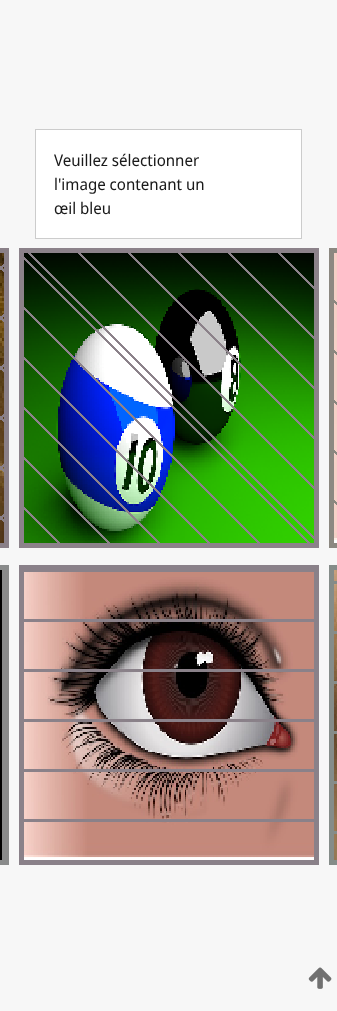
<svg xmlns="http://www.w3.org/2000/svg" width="337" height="1011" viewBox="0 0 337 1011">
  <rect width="100%" height="100%" fill="#f7f7f7"/>
  <rect x="35.5" y="129.5" width="266" height="109" fill="#ffffff" stroke="#cccccc"/>
  <text x="54" y="166" font-family="Noto Sans Display" font-size="16" fill="#1a1a1a">Veuillez sélectionner</text>
  <text x="54" y="190" font-family="Noto Sans Display" font-size="16" fill="#1a1a1a">l'image contenant un</text>
  <text x="54" y="214" font-family="Noto Sans Display" font-size="16" fill="#1a1a1a">œil bleu</text>
  <image x="0" y="248" width="9" height="300" href="img1.png"/>
  <image x="19" y="248" width="300" height="300" href="img2.png"/>
  <image x="329" y="248" width="8" height="300" href="img3.png"/>
  <image x="0" y="565" width="9" height="300" href="img4.png"/>
  <image x="19" y="565" width="300" height="300" href="img5.png"/>
  <image x="329" y="565" width="8" height="300" href="img6.png"/>
  <image x="308" y="967" width="24" height="22" href="img7.png"/>
</svg>
